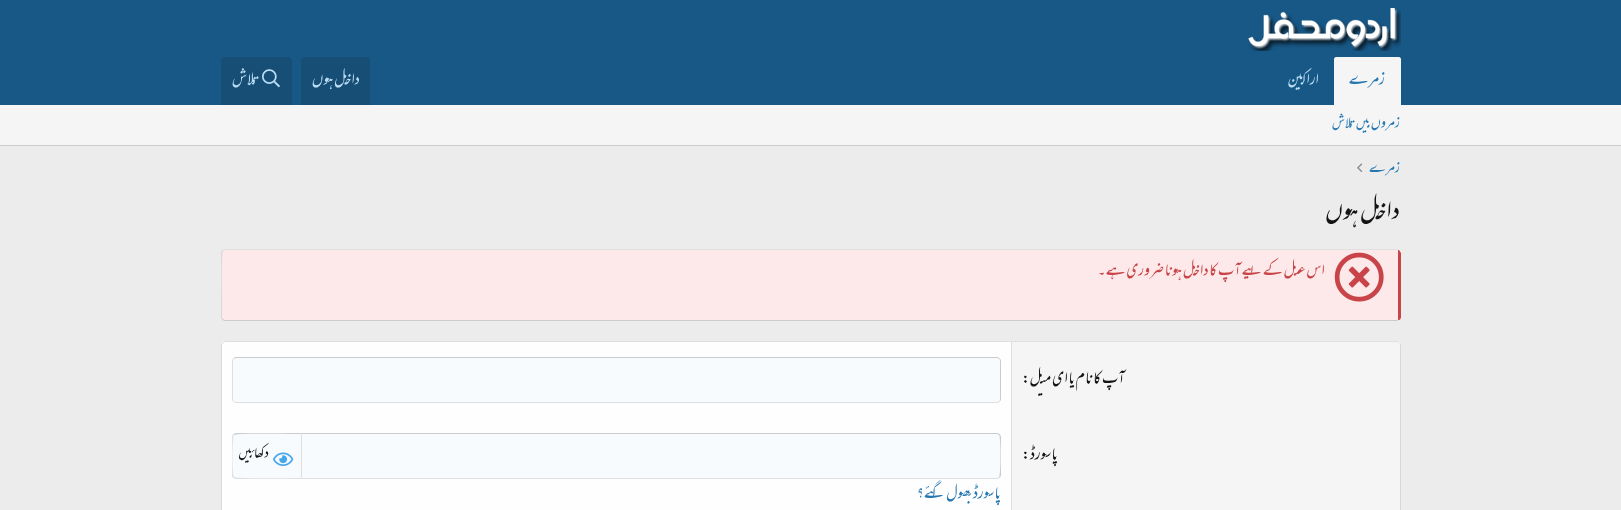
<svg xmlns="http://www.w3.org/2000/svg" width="1621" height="510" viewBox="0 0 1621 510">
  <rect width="100%" height="100%" fill="#ececec"/>
  <rect x="0" y="0" width="1621" height="105" fill="#185886"/>
  <image x="1248" y="8" width="153" height="43" href="img1.png"/>
  <path d="M1336 57H1399C1400 57 1401 58 1401 59V105H1334V59C1334 58 1335 57 1336 57Z" fill="#f5f5f5"/>
  <text x="1385" y="85" font-family="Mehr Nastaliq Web" font-size="18" direction="rtl" fill="#2577b1">زمرے</text>
  <text x="1319" y="85" font-family="Mehr Nastaliq Web" font-size="18" direction="rtl" fill="#bcdef5">اراکین</text>
  <path d="M305 57H366C368 57 370 59 370 61V105H301V61C301 59 303 57 305 57Z" fill="#174e75"/>
  <text x="360" y="85" font-family="Mehr Nastaliq Web" font-size="18" direction="rtl" fill="#bcdef5">داخل ہوں</text>
  <path d="M225 57H288C290 57 292 59 292 61V105H221V61C221 59 223 57 225 57Z" fill="#174e75"/>
  <image x="262" y="69" width="18" height="19" href="img2.png"/>
  <text x="259" y="85" font-family="Mehr Nastaliq Web" font-size="18" direction="rtl" fill="#bcdef5">تلاش</text>
  <rect x="0" y="105" width="1621" height="40" fill="#f5f5f5"/>
  <rect x="0" y="145" width="1621" height="1" fill="#cbcbcb"/>
  <text x="1400" y="128" font-family="Mehr Nastaliq Web" font-size="15.5" direction="rtl" fill="#2577b1">زمروں میں تلاش</text>
  <text x="1400" y="173" font-family="Mehr Nastaliq Web" font-size="15.5" direction="rtl" fill="#2577b1">زمرے</text>
  <image x="1357" y="163" width="6" height="9" href="img3.png"/>
  <text x="1400" y="220" font-family="Mehr Nastaliq Web" font-size="28" direction="rtl" fill="#141414">داخل ہوں</text>
  <path d="M225 250H1397C1398 250 1398 251 1398 253V317C1398 319 1398 320 1397 320H225C223 320 222 319 222 317V253C222 251 223 250 225 250Z" fill="#fde9e9"/>
  <path d="M225 249L222 250L223 251L225 250H1398H1399L1397 249Z" fill="#dfdfdf"/>
  <path d="M1401 317V253L1399 250H1398V252V317V320H1399C1400 320 1401 318 1401 317Z" fill="#c84448"/>
  <path d="M225 321H1397L1399 320H1398H225L223 319L222 320Z" fill="#cbcbcb"/>
  <path d="M221 253V317L222 320L223 319L222 317V306C222 300 221 253 223 251L222 250Z" fill="#d8d8d8"/>
  <image x="1334" y="252" width="50" height="50" href="img4.png"/>
  <text x="1325" y="276" font-family="Mehr Nastaliq Web" font-size="18" direction="rtl" fill="#c84448">اس عمل کے لیے آپ کا داخل ہونا ضروری ہے۔</text>
  <rect x="221" y="341" width="1180" height="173" rx="4" fill="#fefefe"/>
  <path d="M222.5 342.5L225 341.5H1397L1399.5 342.5" fill="none" stroke="#dfdfdf"/>
  <path d="M1399.5 342.5L1400.5 345V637L1399.5 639.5" fill="none" stroke="#d8d8d8"/>
  <path d="M222.5 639.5L221.5 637V345L222.5 342.5" fill="none" stroke="#d8d8d8"/>
  <path d="M1011 342H1397C1398.5 342 1400 343.5 1400 345V418H1011Z" fill="#f5f5f5"/>
  <rect x="1011" y="342" width="1" height="168" fill="#dfdfdf"/>
  <text x="1125" y="384" font-family="Mehr Nastaliq Web" font-size="18" direction="rtl" fill="#141414">آپ کا نام یا ای میل</text>
  <text x="1022" y="384" font-family="Mehr Nastaliq Web" font-size="18" fill="#141414">:</text>
  <rect x="232" y="357" width="769" height="46" rx="4" fill="#f7fbfe"/>
  <path d="M233.5 358.5C234 358 235 357.5 236 357.5H997C998 357.5 999 358 999.5 358.5C1000 359 1000.5 360 1000.5 361V399C1000.5 400 1000 401 999.5 401.5" fill="none" stroke="#cbcbcb"/>
  <path d="M999.5 401.5C999 402 998 402.5 997 402.5H236C235 402.5 234 402 233.5 401.5C233 401 232.5 400 232.5 399V361C232.5 360 233 359 233.5 358.5" fill="none" stroke="#dfdfdf"/>
  <rect x="1012" y="418" width="388" height="92" fill="#f5f5f5"/>
  <text x="1058" y="460" font-family="Mehr Nastaliq Web" font-size="18" direction="rtl" fill="#141414">پاسورڈ</text>
  <text x="1022" y="460" font-family="Mehr Nastaliq Web" font-size="18" fill="#141414">:</text>
  <path d="M302 433H997C999 433 1001 435 1001 437V475C1001 477 999 479 997 479H302Z" fill="#f7fbfe"/>
  <path d="M302 433V434H997L999 435L1000 434L997 433Z" fill="#cbcbcb"/>
  <path d="M999 477C1001 476 1001 436 999 435L1000 434C1000 435 1001 436 1001 437V475C1001 476 1000 477 1000 478Z" fill="#cbcbcb"/>
  <path d="M302 478V479H997L1000 478L999 477L997 478Z" fill="#dfdfdf"/>
  <path d="M236 433H302V479H236C234 479 232 477 232 475V437C232 435 234 433 236 433Z" fill="#f7fbfe"/>
  <path d="M236 433L233 434L234 435C235 433 294 434 301 434L302 433Z" fill="#cbcbcb"/>
  <path d="M302 433L301 434V478L302 479Z" fill="#dfdfdf"/>
  <path d="M302 479L301 478C294 478 235 479 234 477L233 478L236 479Z" fill="#dfdfdf"/>
  <path d="M232 437V475C232 476 232 477 233 478L234 477C232 476 232 436 234 435L233 434Z" fill="#dfdfdf"/>
  <image x="273" y="452" width="21" height="14" href="img5.png"/>
  <text x="269" y="458" font-family="Mehr Nastaliq Web" font-size="15.5" direction="rtl" fill="#141414">دکھائیں</text>
  <text x="1001" y="499" font-family="Mehr Nastaliq Web" font-size="18" direction="rtl" fill="#2577b1">پاسورڈ بھول گئے؟</text>
</svg>
